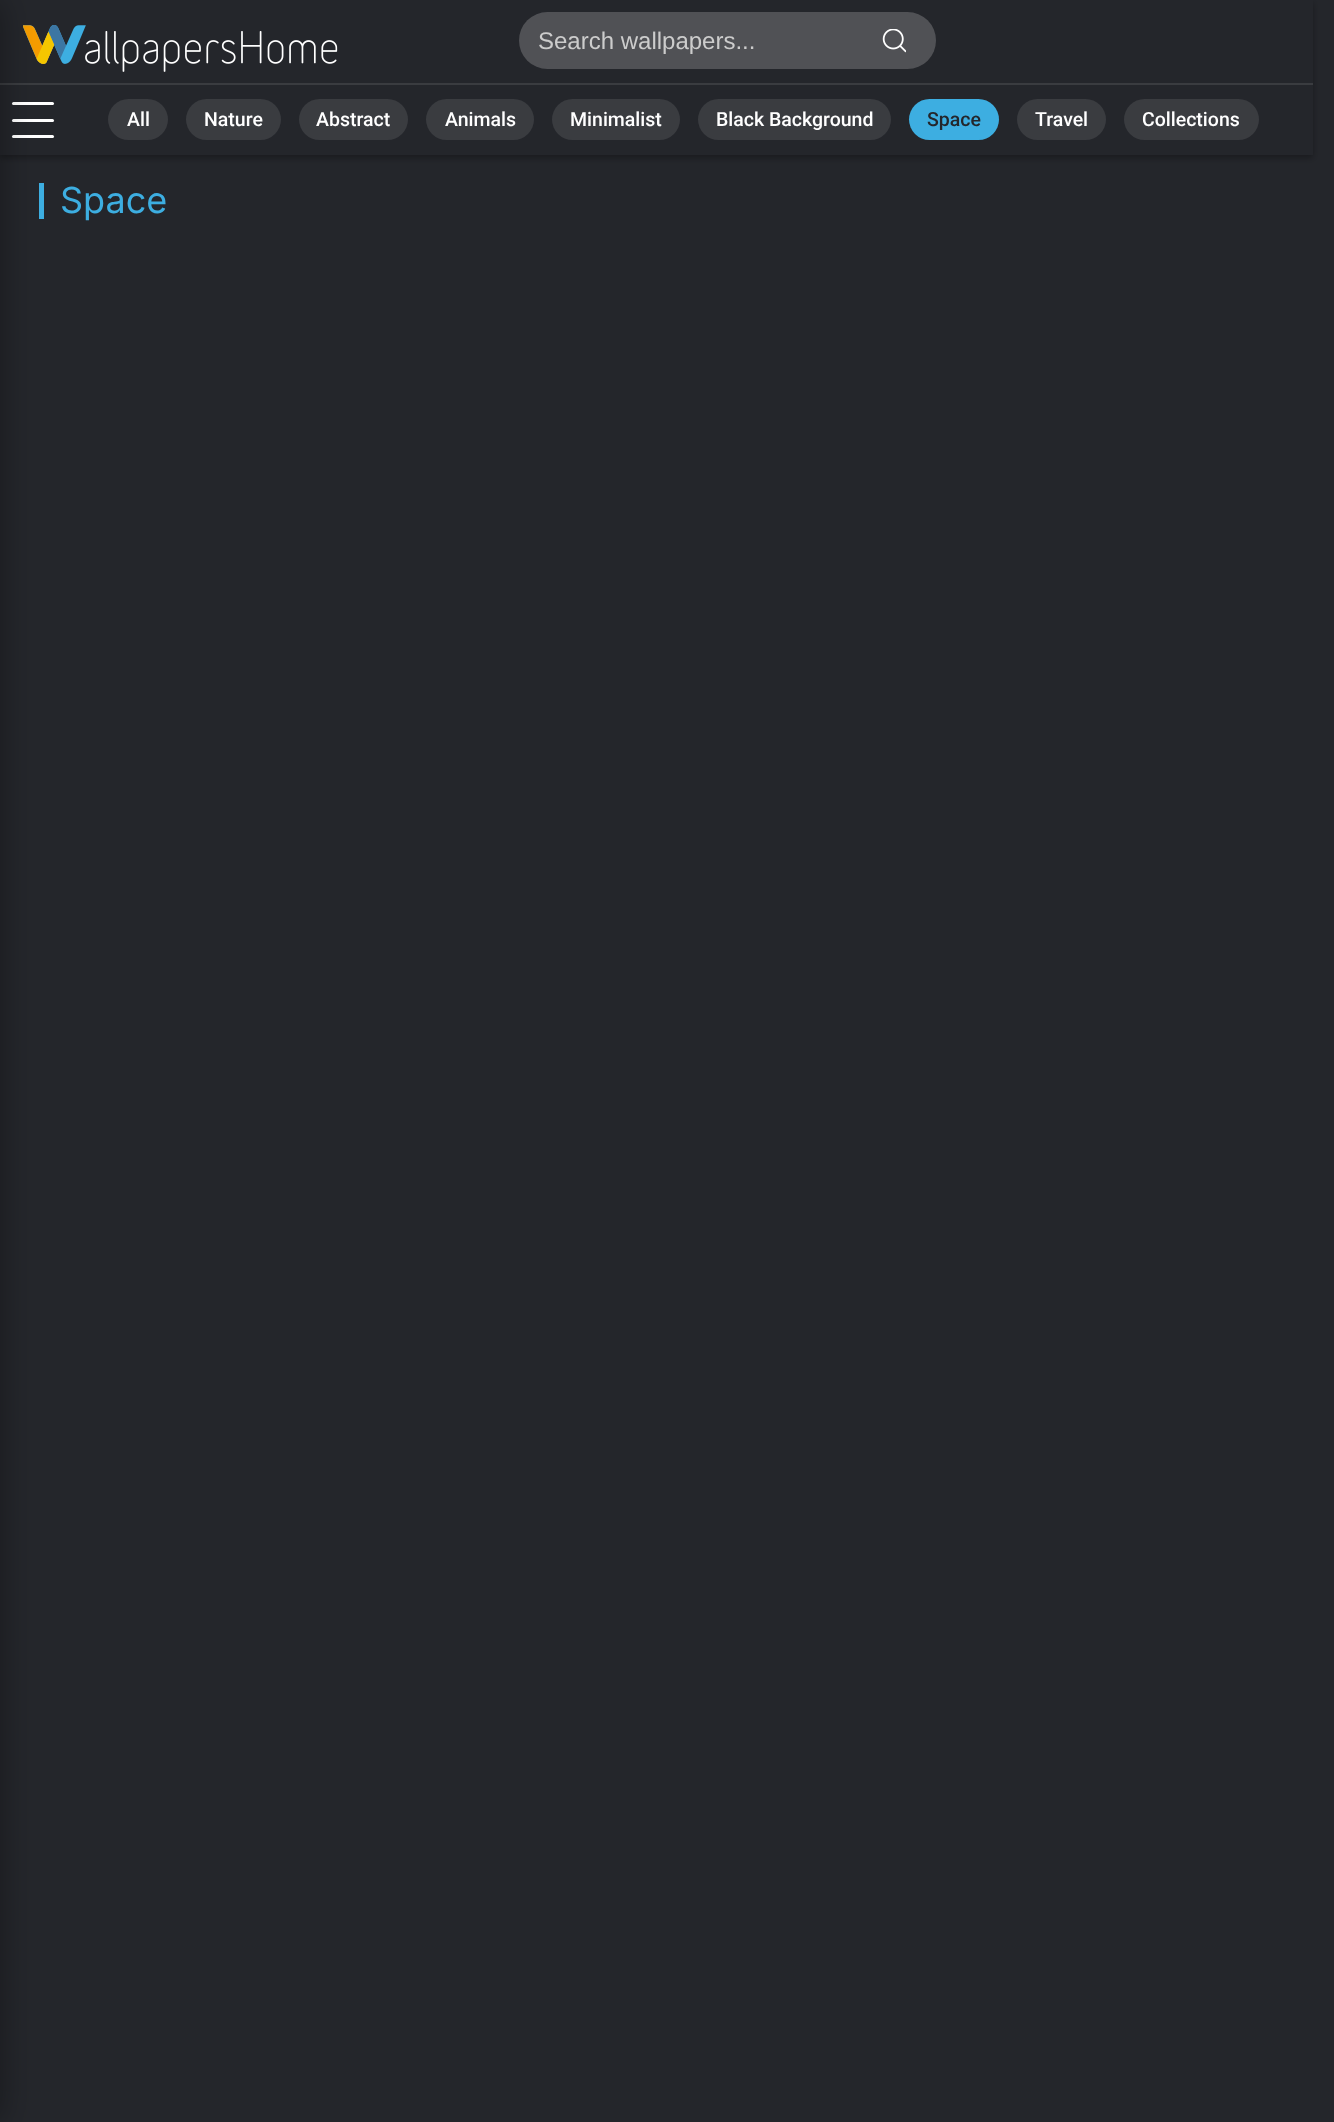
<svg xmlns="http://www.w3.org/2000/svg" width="1334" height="2122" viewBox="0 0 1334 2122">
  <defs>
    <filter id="blur1" x="-50%" y="-200%" width="200%" height="500%"><feGaussianBlur stdDeviation="3"/></filter>
    <filter id="blur2" x="-50%" y="-200%" width="200%" height="500%"><feGaussianBlur stdDeviation="15"/></filter>
  </defs>
  <rect width="100%" height="100%" fill="#24262b"/>
  <rect x="0" y="3" width="1313" height="155" fill="#000000" fill-opacity="0.3" filter="url(#blur1)"/>
  <rect x="0" y="0" width="1313" height="155" fill="#24262b"/>
  <image x="23" y="25" width="315" height="47" href="img1.png"/>
  <rect x="519" y="12" width="417" height="57" rx="28.5" fill="#505155"/>
  <text x="538" y="49" font-family="Liberation Sans" font-size="24" fill="#cccccc">Search wallpapers...</text>
  <image x="882" y="29" width="24" height="24" href="img2.png"/>
  <rect x="0" y="83" width="1313" height="2" fill="#3a3c40"/>
  <rect x="12" y="102" width="42" height="3" rx="1.5" fill="#ffffff"/>
  <rect x="12" y="119" width="42" height="3" rx="1.5" fill="#ffffff"/>
  <rect x="12" y="135" width="42" height="3" rx="1.5" fill="#ffffff"/>
  <rect x="108" y="99" width="60" height="41" rx="20.5" fill="#3a3c40"/>
  <text x="127" y="126" font-family="Roboto" font-size="19.5" font-weight="500" fill="#ffffff">All</text>
  <rect x="186" y="99" width="95" height="41" rx="20.5" fill="#3a3c40"/>
  <text x="204" y="126" font-family="Roboto" font-size="19.5" font-weight="500" fill="#ffffff">Nature</text>
  <rect x="299" y="99" width="109" height="41" rx="20.5" fill="#3a3c40"/>
  <text x="316" y="126" font-family="Roboto" font-size="19.5" font-weight="500" fill="#ffffff">Abstract</text>
  <rect x="426" y="99" width="108" height="41" rx="20.5" fill="#3a3c40"/>
  <text x="445" y="126" font-family="Roboto" font-size="19.5" font-weight="500" fill="#ffffff">Animals</text>
  <rect x="552" y="99" width="128" height="41" rx="20.5" fill="#3a3c40"/>
  <text x="570" y="126" font-family="Roboto" font-size="19.5" font-weight="500" fill="#ffffff">Minimalist</text>
  <rect x="698" y="99" width="193" height="41" rx="20.5" fill="#3a3c40"/>
  <text x="716" y="126" font-family="Roboto" font-size="19.5" font-weight="500" fill="#ffffff">Black Background</text>
  <rect x="909" y="99" width="90" height="41" rx="20.5" fill="#3daee1"/>
  <text x="927" y="126" font-family="Roboto" font-size="19.5" font-weight="500" fill="#24262b">Space</text>
  <rect x="1017" y="99" width="89" height="41" rx="20.5" fill="#3a3c40"/>
  <text x="1035" y="126" font-family="Roboto" font-size="19.5" font-weight="500" fill="#ffffff">Travel</text>
  <rect x="1124" y="99" width="135" height="41" rx="20.5" fill="#3a3c40"/>
  <text x="1142" y="126" font-family="Roboto" font-size="19.5" font-weight="500" fill="#ffffff">Collections</text>
  <rect x="39" y="183" width="5" height="36" fill="#3daee1"/>
  <rect x="-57" y="0" width="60" height="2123" rx="12" fill="#000000" fill-opacity="0.3" filter="url(#blur2)"/>
  <text x="60" y="213" font-family="Inter" font-size="36" fill="#3daee1">Space</text>
</svg>
